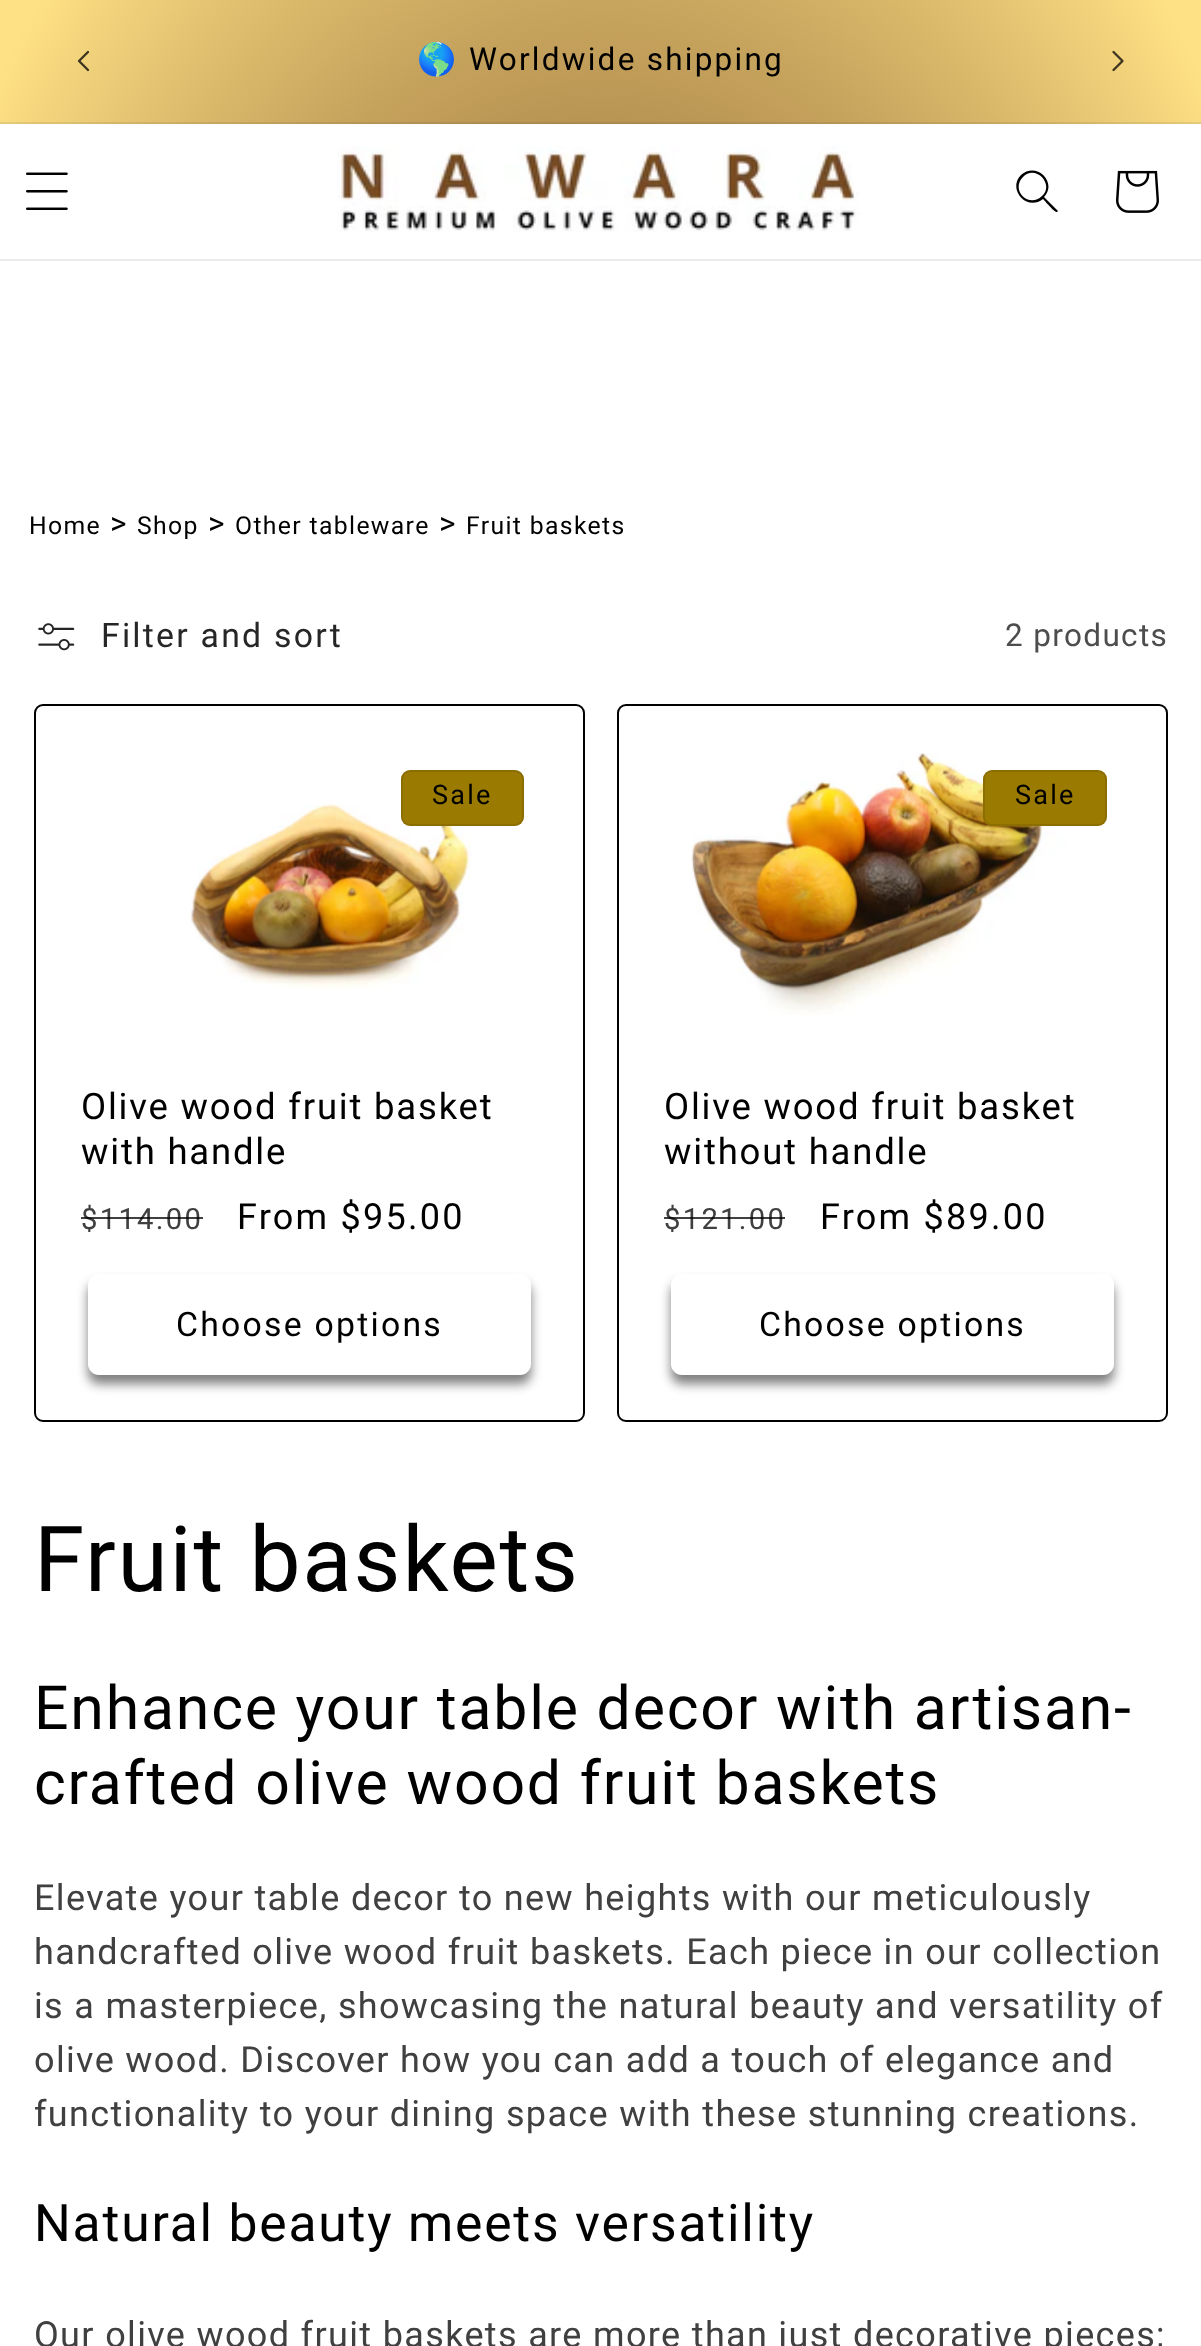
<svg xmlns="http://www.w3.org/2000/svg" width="1201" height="2346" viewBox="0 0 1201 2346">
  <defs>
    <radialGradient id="g1" gradientUnits="userSpaceOnUse" cx="0" cy="0" r="1" gradientTransform="matrix(850 0 0 1659 601 1173)"><stop offset="0.31" stop-color="#764c24"/><stop offset="0.97" stop-color="#ffe185"/></radialGradient>
    <radialGradient id="g2" gradientUnits="userSpaceOnUse" cx="0" cy="0" r="1" gradientTransform="matrix(850 0 0 1659 601 1173)"><stop offset="0.31" stop-color="#6d4621"/><stop offset="0.97" stop-color="#ebcf7a"/></radialGradient>
    <filter id="blur1" x="-50%" y="-200%" width="200%" height="500%"><feGaussianBlur stdDeviation="5.5"/></filter>
  </defs>
  <rect width="100%" height="100%" fill="#ffffff"/>
  <rect x="0" y="0" width="1201" height="122" fill="url(#g1)"/>
  <rect x="0" y="122" width="1201" height="2" fill="url(#g2)"/>
  <image x="77" y="50" width="13" height="22" href="img1.png"/>
  <text x="417" y="70" font-family="Noto Color Emoji" font-size="31.5" letter-spacing="2.25" fill="#000000">🌎</text>
  <text x="469" y="70" font-family="Roboto" font-size="31.5" letter-spacing="2.25" fill="#000000">Worldwide shipping</text>
  <image x="1112" y="50" width="12" height="22" href="img2.png"/>
  <rect x="0" y="259" width="1201" height="2" fill="#ebebeb"/>
  <image x="26" y="172" width="42" height="38" href="img3.png"/>
  <image x="337" y="146" width="523" height="86" href="img4.png"/>
  <path d="M1042 196C1029 209 1010 190 1023 177C1035 164 1055 184 1042 196ZM1043 199C1027 212 1007 189 1021 175C1036 161 1058 182 1044 197L1058 211L1057 212C1055 213 1045 201 1043 199Z" fill="#000000" fill-rule="evenodd"/>
  <image x="1116" y="170" width="43" height="43" href="img5.png"/>
  <text x="29" y="534" font-family="Roboto" font-size="24.75" letter-spacing="1.35" fill="#000000">Home</text>
  <text x="110" y="534" font-family="Roboto" font-size="31.5" letter-spacing="1.35" fill="#000000">&gt;</text>
  <text x="137" y="534" font-family="Roboto" font-size="24.75" letter-spacing="1.35" fill="#000000">Shop</text>
  <text x="208" y="534" font-family="Roboto" font-size="31.5" letter-spacing="1.35" fill="#000000">&gt;</text>
  <text x="235" y="534" font-family="Roboto" font-size="24.75" letter-spacing="1.35" fill="#000000">Other tableware</text>
  <text x="439" y="534" font-family="Roboto" font-size="31.5" letter-spacing="1.35" fill="#000000">&gt;</text>
  <text x="466" y="534" font-family="Roboto" font-size="24.75" letter-spacing="1.35" fill="#000000">Fruit baskets</text>
  <image x="38" y="623" width="37" height="28" href="img6.png"/>
  <text x="101" y="647" font-family="Roboto" font-size="33.75" letter-spacing="2.25" fill="#262626">Filter and sort</text>
  <text x="1005" y="646" font-family="Roboto" font-size="31.5" letter-spacing="1.35" fill="#4d4d4d">2 products</text>
  <rect x="35" y="705" width="549" height="716" rx="8" fill="none" stroke="#000000" stroke-width="2"/>
  <image x="190" y="804" width="283" height="185" href="img7.png"/>
  <rect x="401" y="770" width="123" height="56" rx="9" fill="#9b7a01"/>
  <rect x="402" y="771" width="121" height="54" rx="8" fill="none" stroke="#000000" stroke-opacity="0.1" stroke-width="2"/>
  <text x="432" y="804" font-family="Roboto" font-size="27" letter-spacing="2.25" fill="#000000">Sale</text>
  <text x="81" y="1119" font-family="Roboto" font-size="36.5" letter-spacing="1.8" fill="#000000">Olive wood fruit basket</text>
  <text x="81" y="1164" font-family="Roboto" font-size="36.5" letter-spacing="1.8" fill="#000000">with handle</text>
  <text x="81" y="1229" font-family="Roboto" font-size="29.25" letter-spacing="2.25" fill="#404040">$114.00</text>
  <rect x="81" y="1217" width="122" height="2" fill="#000000" fill-opacity="0.75"/>
  <text x="237" y="1229" font-family="Roboto" font-size="36" letter-spacing="2.25" fill="#000000">From $95.00</text>
  <rect x="88" y="1283" width="443" height="101" rx="11" fill="#000000" fill-opacity="0.5" filter="url(#blur1)"/>
  <rect x="88" y="1274" width="443" height="101" rx="11" fill="#ffffff"/>
  <text x="176" y="1336" font-family="Roboto" font-size="33.75" letter-spacing="2.25" fill="#000000">Choose options</text>
  <rect x="618" y="705" width="549" height="716" rx="8" fill="none" stroke="#000000" stroke-width="2"/>
  <image x="691" y="753" width="376" height="262" href="img8.png"/>
  <rect x="983" y="770" width="124" height="56" rx="9" fill="#9b7a01"/>
  <rect x="984" y="771" width="122" height="54" rx="8" fill="none" stroke="#000000" stroke-opacity="0.1" stroke-width="2"/>
  <text x="1015" y="804" font-family="Roboto" font-size="27" letter-spacing="2.25" fill="#000000">Sale</text>
  <text x="664" y="1119" font-family="Roboto" font-size="36.5" letter-spacing="1.8" fill="#000000">Olive wood fruit basket</text>
  <text x="664" y="1164" font-family="Roboto" font-size="36.5" letter-spacing="1.8" fill="#000000">without handle</text>
  <text x="664" y="1229" font-family="Roboto" font-size="29.25" letter-spacing="2.25" fill="#404040">$121.00</text>
  <rect x="664" y="1217" width="121" height="2" fill="#000000" fill-opacity="0.75"/>
  <text x="820" y="1229" font-family="Roboto" font-size="36" letter-spacing="2.25" fill="#000000">From $89.00</text>
  <rect x="671" y="1283" width="443" height="101" rx="11" fill="#000000" fill-opacity="0.5" filter="url(#blur1)"/>
  <rect x="671" y="1274" width="443" height="101" rx="11" fill="#ffffff"/>
  <text x="759" y="1336" font-family="Roboto" font-size="33.75" letter-spacing="2.25" fill="#000000">Choose options</text>
  <text x="34" y="1591" font-family="Roboto" font-size="91" letter-spacing="1.8" fill="#000000">Fruit baskets</text>
  <text x="34" y="1729" font-family="Roboto" font-size="60.75" letter-spacing="1.8" fill="#000000">Enhance your table decor with artisan-</text>
  <text x="34" y="1804" font-family="Roboto" font-size="60.75" letter-spacing="1.8" fill="#000000">crafted olive wood fruit baskets</text>
  <text x="34" y="1910" font-family="Roboto" font-size="36" letter-spacing="1.35" fill="#404040">Elevate your table decor to new heights with our meticulously</text>
  <text x="34" y="1964" font-family="Roboto" font-size="36" letter-spacing="1.35" fill="#404040">handcrafted olive wood fruit baskets. Each piece in our collection</text>
  <text x="34" y="2018" font-family="Roboto" font-size="36" letter-spacing="1.35" fill="#404040">is a masterpiece, showcasing the natural beauty and versatility of</text>
  <text x="34" y="2072" font-family="Roboto" font-size="36" letter-spacing="1.35" fill="#404040">olive wood. Discover how you can add a touch of elegance and</text>
  <text x="34" y="2126" font-family="Roboto" font-size="36" letter-spacing="1.35" fill="#404040">functionality to your dining space with these stunning creations.</text>
  <text x="34" y="2241" font-family="Roboto" font-size="51.6" letter-spacing="1.8" fill="#000000">Natural beauty meets versatility</text>
  <text x="34" y="2347" font-family="Roboto" font-size="36" letter-spacing="1.35" fill="#404040">Our olive wood fruit baskets are more than just decorative pieces;</text>
</svg>
